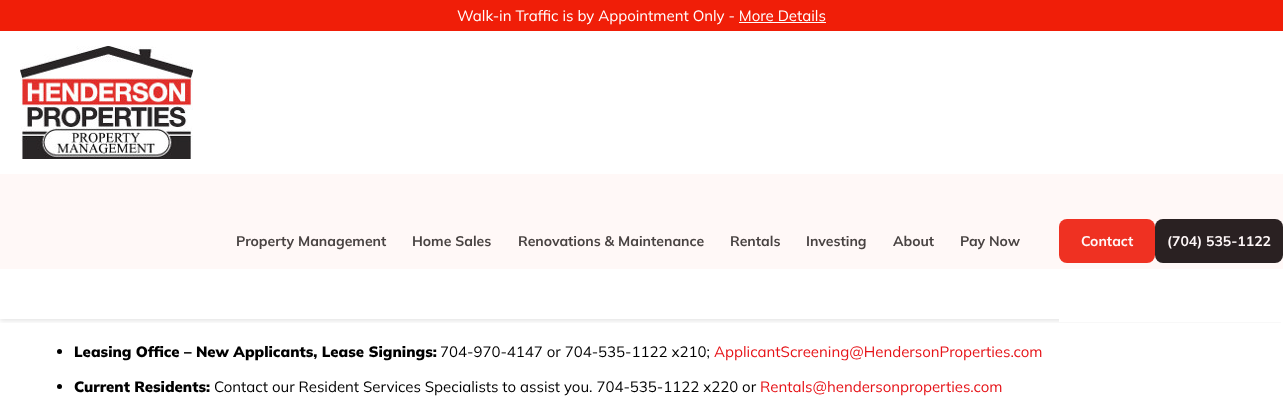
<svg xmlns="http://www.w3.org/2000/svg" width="1283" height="397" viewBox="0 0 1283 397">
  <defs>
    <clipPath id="clip1"><rect x="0" y="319" width="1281" height="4"/></clipPath>
    <filter id="blur1" x="-50%" y="-200%" width="200%" height="500%"><feGaussianBlur stdDeviation="2.5"/></filter>
  </defs>
  <rect width="100%" height="100%" fill="#ffffff"/>
  <rect x="0" y="0" width="1283" height="31" fill="#f01e08"/>
  <text x="457" y="21" font-family="Mulish" font-size="15" fill="#ffffff">Walk-in Traffic is by Appointment Only - More Details</text>
  <rect x="739" y="22" width="87" height="1" fill="#ffffff"/>
  <rect x="0" y="174" width="1283" height="95" fill="#f01e0d"/>
  <g clip-path="url(#clip1)">
    <rect x="0" y="33" width="1283" height="288" fill="#000000" fill-opacity="0.1" filter="url(#blur1)"/>
  </g>
  <rect x="0" y="174" width="1283" height="95" fill="#ffffff" fill-opacity="0.97"/>
  <image x="20" y="46" width="173" height="113" href="img1.png"/>
  <text x="236" y="246" font-family="Mulish" font-size="14" font-weight="bold" fill="#494342">Property Management</text>
  <text x="412" y="246" font-family="Mulish" font-size="14" font-weight="bold" fill="#494342">Home Sales</text>
  <text x="518" y="246" font-family="Mulish" font-size="14" font-weight="bold" fill="#494342">Renovations &amp; Maintenance</text>
  <text x="730" y="246" font-family="Mulish" font-size="14" font-weight="bold" fill="#494342">Rentals</text>
  <text x="806" y="246" font-family="Mulish" font-size="14" font-weight="bold" fill="#494342">Investing</text>
  <text x="893" y="246" font-family="Mulish" font-size="14" font-weight="bold" fill="#494342">About</text>
  <text x="960" y="246" font-family="Mulish" font-size="14" font-weight="bold" fill="#494342">Pay Now</text>
  <rect x="1059" y="219" width="96" height="44" rx="8" fill="#ef3122"/>
  <text x="1081" y="246" font-family="Mulish" font-size="14" font-weight="bold" fill="#fff8f8">Contact</text>
  <rect x="1059" y="319" width="224" height="3" fill="#ffffff"/>
  <rect x="1155" y="219" width="128" height="44" rx="8" fill="#2a2122"/>
  <text x="1167" y="246" font-family="Mulish" font-size="14" font-weight="bold" fill="#fff8f8">(704) 535-1122</text>
  <circle cx="59.5" cy="351.5" r="2.5" fill="#000000"/>
  <text x="74" y="357" font-family="Mulish" font-size="15" font-weight="900" fill="#000000">Leasing Office – New Applicants, Lease Signings:</text>
  <text x="440" y="357" font-family="Mulish" font-size="15" fill="#000000">704-970-4147 or 704-535-1122 x210;</text>
  <text x="714" y="357" font-family="Mulish" font-size="15" fill="#e61217">ApplicantScreening@HendersonProperties.com</text>
  <circle cx="59.5" cy="386.5" r="2.5" fill="#000000"/>
  <text x="74" y="392" font-family="Mulish" font-size="15" font-weight="900" fill="#000000">Current Residents:</text>
  <text x="214" y="392" font-family="Mulish" font-size="15" fill="#000000">Contact our Resident Services Specialists to assist you. 704-535-1122 x220 or</text>
  <text x="760" y="392" font-family="Mulish" font-size="15" fill="#e61217">Rentals@hendersonproperties.com</text>
</svg>
